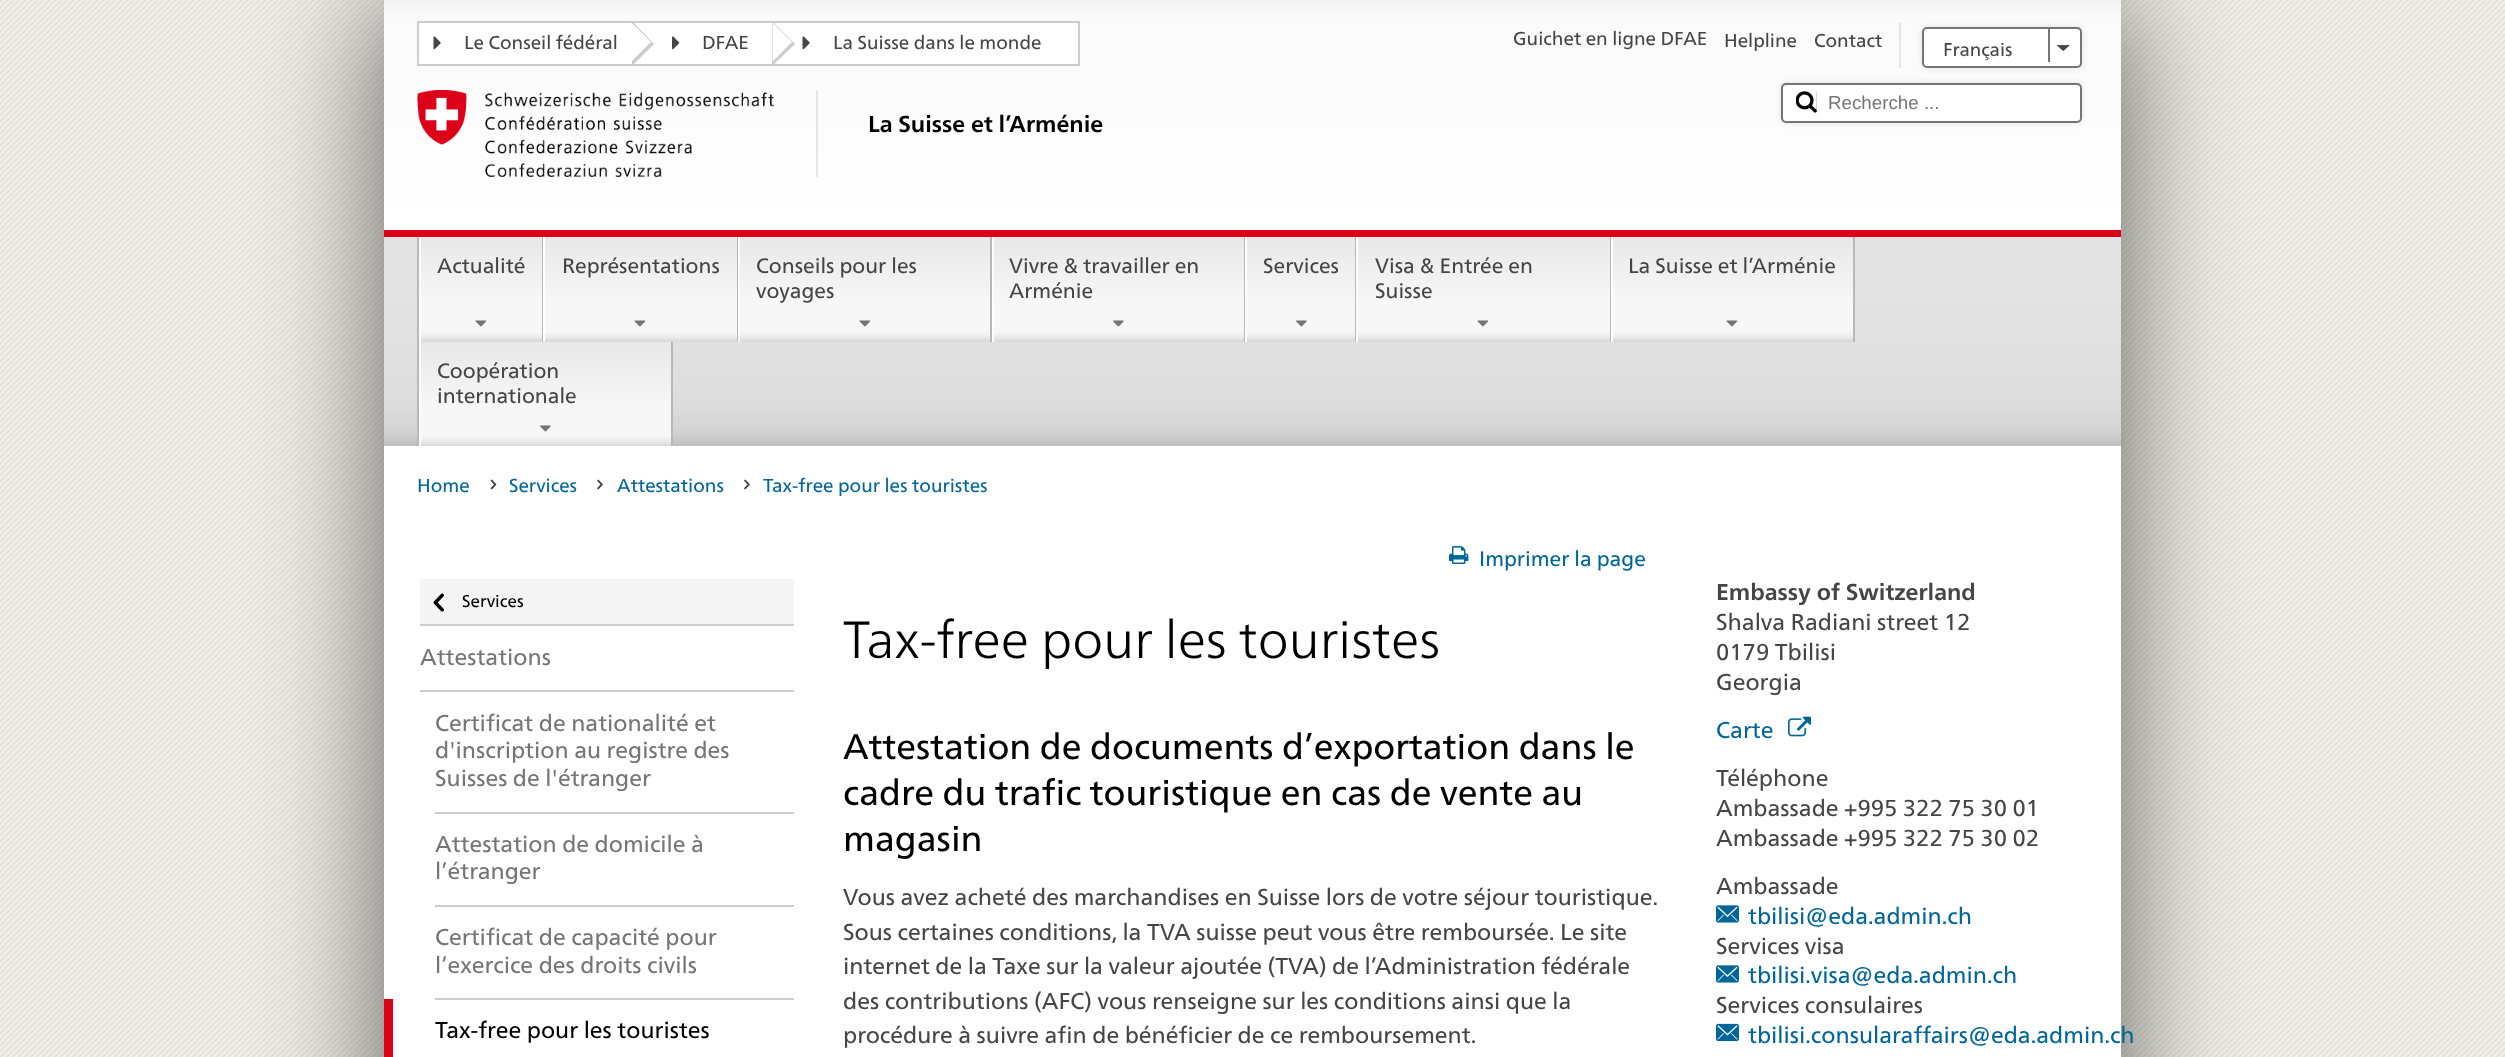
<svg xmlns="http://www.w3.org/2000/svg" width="2505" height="1057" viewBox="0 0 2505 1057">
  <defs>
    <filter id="blur1" x="-50%" y="-200%" width="200%" height="500%"><feGaussianBlur stdDeviation="62.5"/></filter>
    <linearGradient id="g1" gradientUnits="userSpaceOnUse" x1="1253" y1="0" x2="1253" y2="230"><stop offset="0" stop-color="#f2f2f2"/><stop offset="0.07" stop-color="#fafafa"/><stop offset="1" stop-color="#ffffff"/></linearGradient>
    <filter id="blur2" x="-50%" y="-200%" width="200%" height="500%"><feGaussianBlur stdDeviation="3"/></filter>
    <linearGradient id="g2" gradientUnits="userSpaceOnUse" x1="1253" y1="237" x2="1253" y2="446"><stop offset="0" stop-color="#e4e4e4"/><stop offset="0.39" stop-color="#e2e2e2"/><stop offset="0.79" stop-color="#dddddd"/><stop offset="0.91" stop-color="#d5d5d5"/><stop offset="0.95" stop-color="#cfcfcf"/><stop offset="1" stop-color="#bebebe"/></linearGradient>
    <linearGradient id="g3" gradientUnits="userSpaceOnUse" x1="481" y1="237" x2="481" y2="342"><stop offset="0" stop-color="#e8e8e8"/><stop offset="0.61" stop-color="#f7f7f7"/><stop offset="0.89" stop-color="#f7f7f7"/><stop offset="0.91" stop-color="#f5f5f5"/><stop offset="0.95" stop-color="#ececec"/><stop offset="1" stop-color="#d7d7d7"/></linearGradient>
    <linearGradient id="g4" gradientUnits="userSpaceOnUse" x1="641" y1="237" x2="641" y2="342"><stop offset="0" stop-color="#e8e8e8"/><stop offset="0.61" stop-color="#f7f7f7"/><stop offset="0.89" stop-color="#f7f7f7"/><stop offset="0.91" stop-color="#f5f5f5"/><stop offset="0.95" stop-color="#ececec"/><stop offset="1" stop-color="#d7d7d7"/></linearGradient>
    <linearGradient id="g5" gradientUnits="userSpaceOnUse" x1="865" y1="237" x2="865" y2="342"><stop offset="0" stop-color="#e8e8e8"/><stop offset="0.61" stop-color="#f7f7f7"/><stop offset="0.89" stop-color="#f7f7f7"/><stop offset="0.91" stop-color="#f5f5f5"/><stop offset="0.95" stop-color="#ececec"/><stop offset="1" stop-color="#d7d7d7"/></linearGradient>
    <linearGradient id="g6" gradientUnits="userSpaceOnUse" x1="1118" y1="237" x2="1118" y2="342"><stop offset="0" stop-color="#e8e8e8"/><stop offset="0.61" stop-color="#f7f7f7"/><stop offset="0.89" stop-color="#f7f7f7"/><stop offset="0.91" stop-color="#f5f5f5"/><stop offset="0.95" stop-color="#ececec"/><stop offset="1" stop-color="#d7d7d7"/></linearGradient>
    <linearGradient id="g7" gradientUnits="userSpaceOnUse" x1="1301" y1="237" x2="1301" y2="342"><stop offset="0" stop-color="#e8e8e8"/><stop offset="0.61" stop-color="#f7f7f7"/><stop offset="0.89" stop-color="#f7f7f7"/><stop offset="0.91" stop-color="#f5f5f5"/><stop offset="0.95" stop-color="#ececec"/><stop offset="1" stop-color="#d7d7d7"/></linearGradient>
    <linearGradient id="g8" gradientUnits="userSpaceOnUse" x1="1484" y1="237" x2="1484" y2="342"><stop offset="0" stop-color="#e8e8e8"/><stop offset="0.61" stop-color="#f7f7f7"/><stop offset="0.89" stop-color="#f7f7f7"/><stop offset="0.91" stop-color="#f5f5f5"/><stop offset="0.95" stop-color="#ececec"/><stop offset="1" stop-color="#d7d7d7"/></linearGradient>
    <linearGradient id="g9" gradientUnits="userSpaceOnUse" x1="1733" y1="237" x2="1733" y2="342"><stop offset="0" stop-color="#e8e8e8"/><stop offset="0.61" stop-color="#f7f7f7"/><stop offset="0.89" stop-color="#f7f7f7"/><stop offset="0.91" stop-color="#f5f5f5"/><stop offset="0.95" stop-color="#ececec"/><stop offset="1" stop-color="#d7d7d7"/></linearGradient>
    <linearGradient id="g10" gradientUnits="userSpaceOnUse" x1="545" y1="342" x2="545" y2="446"><stop offset="0" stop-color="#e8e8e8"/><stop offset="0.61" stop-color="#f7f7f7"/><stop offset="0.89" stop-color="#f7f7f7"/><stop offset="0.91" stop-color="#f5f5f5"/><stop offset="0.95" stop-color="#ececec"/><stop offset="1" stop-color="#d7d7d7"/></linearGradient>
  </defs>
  <rect width="100%" height="100%" fill="#ffffff"/>
  <image x="0" y="0" width="2505" height="1057" href="img1.png"/>
  <rect x="384" y="0" width="1737" height="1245" fill="#000000" fill-opacity="0.6" filter="url(#blur1)"/>
  <rect x="384" y="446" width="1737" height="611" fill="#ffffff"/>
  <rect x="384" y="0" width="1737" height="230" fill="url(#g1)"/>
  <rect x="418" y="22" width="661" height="43" fill="#ffffff" stroke="#cccccc" stroke-width="2"/>
  <path d="M632 66V21L654 44Z" fill="#cccccc"/>
  <image x="433" y="36" width="8" height="14" href="img2.png"/>
  <text x="464" y="49" font-family="'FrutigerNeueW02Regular'" font-size="18.75" fill="#454545">Le Conseil fédéral</text>
  <path d="M631.5 61.5V22.5L651 42Z" fill="#ffffff"/>
  <path d="M772 66V21L795 44Z" fill="#cccccc"/>
  <image x="672" y="36" width="8" height="14" href="img3.png"/>
  <text x="702" y="49" font-family="'FrutigerNeueW02Regular'" font-size="18.75" fill="#454545">DFAE</text>
  <path d="M772.5 61.5V22.5L792 42Z" fill="#ffffff"/>
  <image x="802" y="36" width="8" height="14" href="img2.png"/>
  <text x="833" y="49" font-family="'FrutigerNeueW02Regular'" font-size="18.75" fill="#454545">La Suisse dans le monde</text>
  <text x="1513" y="45" font-family="'FrutigerNeueW02Regular'" font-size="18.75" fill="#454545">Guichet en ligne DFAE</text>
  <text x="1724" y="47" font-family="'FrutigerNeueW02Regular'" font-size="18.75" fill="#454545">Helpline</text>
  <text x="1814" y="47" font-family="'FrutigerNeueW02Regular'" font-size="18.75" fill="#454545">Contact</text>
  <rect x="1899" y="23" width="2" height="45" fill="#e5e5e5"/>
  <rect x="1922" y="27" width="160" height="41" rx="5" fill="#000000" fill-opacity="0.1" filter="url(#blur2)"/>
  <rect x="1923" y="28" width="158" height="39" rx="4" fill="#ffffff" stroke="#757575" stroke-width="2"/>
  <text x="1943" y="56" font-family="'FrutigerNeueW02Regular'" font-size="18.5" fill="#454545">Français</text>
  <image x="2056" y="45" width="14" height="6" href="img4.png"/>
  <rect x="2048" y="27" width="2" height="35" fill="#757575"/>
  <rect x="1781" y="83" width="301" height="40" rx="5" fill="#000000" fill-opacity="0.1" filter="url(#blur2)"/>
  <rect x="1782" y="84" width="299" height="38" rx="4" fill="#ffffff" stroke="#757575" stroke-width="2"/>
  <image x="1796" y="91" width="21" height="22" href="img5.png"/>
  <text x="1828" y="109" font-family="Liberation Sans" font-size="18.75" fill="#757575">Recherche ...</text>
  <image x="417" y="90" width="357" height="87" href="img6.png"/>
  <rect x="816" y="90" width="2" height="87" fill="#e5e5e5"/>
  <text x="868" y="132" font-family="'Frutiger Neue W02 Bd'" font-size="22.95" font-weight="bold" fill="#000000">La Suisse et l’Arménie</text>
  <rect x="384" y="237" width="1737" height="209" fill="url(#g2)"/>
  <rect x="384" y="230" width="1737" height="7" fill="#dc0018"/>
  <rect x="417" y="237" width="2" height="209" fill="#b8b8b8"/>
  <rect x="421" y="237" width="121" height="105" fill="url(#g3)"/>
  <rect x="542" y="237" width="1" height="105" fill="#b8b8b8"/>
  <rect x="419" y="237" width="2" height="209" fill="#ffffff"/>
  <text x="437" y="273" font-family="'FrutigerNeueW02Regular'" font-size="20.9" fill="#454545">Actualité</text>
  <image x="475" y="320" width="12" height="7" href="img7.png"/>
  <rect x="545" y="237" width="192" height="105" fill="url(#g4)"/>
  <rect x="737" y="237" width="1" height="105" fill="#b8b8b8"/>
  <rect x="543" y="237" width="2" height="105" fill="#ffffff"/>
  <text x="562" y="273" font-family="'FrutigerNeueW02Regular'" font-size="20.9" fill="#454545">Représentations</text>
  <image x="634" y="320" width="12" height="7" href="img7.png"/>
  <rect x="740" y="237" width="250" height="105" fill="url(#g5)"/>
  <rect x="990" y="237" width="2" height="105" fill="#b8b8b8"/>
  <rect x="738" y="237" width="2" height="105" fill="#ffffff"/>
  <text x="756" y="273" font-family="'FrutigerNeueW02Regular'" font-size="20.9" fill="#454545">Conseils pour les</text>
  <text x="756" y="298" font-family="'FrutigerNeueW02Regular'" font-size="20.9" fill="#454545">voyages</text>
  <image x="859" y="320" width="12" height="7" href="img7.png"/>
  <rect x="994" y="237" width="250" height="105" fill="url(#g6)"/>
  <rect x="1244" y="237" width="1" height="105" fill="#b8b8b8"/>
  <rect x="992" y="237" width="2" height="105" fill="#ffffff"/>
  <text x="1009" y="273" font-family="'FrutigerNeueW02Regular'" font-size="20.9" fill="#454545">Vivre &amp; travailler en</text>
  <text x="1009" y="298" font-family="'FrutigerNeueW02Regular'" font-size="20.9" fill="#454545">Arménie</text>
  <image x="1113" y="320" width="11" height="7" href="img8.png"/>
  <rect x="1247" y="237" width="108" height="105" fill="url(#g7)"/>
  <rect x="1355" y="237" width="1" height="105" fill="#b8b8b8"/>
  <rect x="1245" y="237" width="2" height="105" fill="#ffffff"/>
  <text x="1263" y="273" font-family="'FrutigerNeueW02Regular'" font-size="20.9" fill="#454545">Services</text>
  <image x="1296" y="320" width="11" height="7" href="img8.png"/>
  <rect x="1358" y="237" width="252" height="105" fill="url(#g8)"/>
  <rect x="1610" y="237" width="1" height="105" fill="#b8b8b8"/>
  <rect x="1356" y="237" width="2" height="105" fill="#ffffff"/>
  <text x="1375" y="273" font-family="'FrutigerNeueW02Regular'" font-size="20.9" fill="#454545">Visa &amp; Entrée en</text>
  <text x="1375" y="298" font-family="'FrutigerNeueW02Regular'" font-size="20.9" fill="#454545">Suisse</text>
  <image x="1477" y="320" width="12" height="7" href="img7.png"/>
  <rect x="1613" y="237" width="240" height="105" fill="url(#g9)"/>
  <rect x="1853" y="237" width="2" height="105" fill="#b8b8b8"/>
  <rect x="1611" y="237" width="2" height="105" fill="#ffffff"/>
  <text x="1628" y="273" font-family="'FrutigerNeueW02Regular'" font-size="20.9" fill="#454545">La Suisse et l’Arménie</text>
  <image x="1726" y="320" width="12" height="7" href="img7.png"/>
  <rect x="421" y="342" width="250" height="104" fill="url(#g10)"/>
  <rect x="671" y="342" width="2" height="104" fill="#b8b8b8"/>
  <text x="437" y="378" font-family="'FrutigerNeueW02Regular'" font-size="20.9" fill="#454545">Coopération</text>
  <text x="437" y="403" font-family="'FrutigerNeueW02Regular'" font-size="20.9" fill="#454545">internationale</text>
  <image x="540" y="425" width="11" height="7" href="img8.png"/>
  <text x="417" y="492" font-family="'FrutigerNeueW02Regular'" font-size="18.75" fill="#006699">Home</text>
  <image x="490" y="479" width="7" height="11" href="img9.png"/>
  <text x="509" y="492" font-family="'FrutigerNeueW02Regular'" font-size="18.75" fill="#006699">Services</text>
  <image x="597" y="479" width="6" height="11" href="img10.png"/>
  <text x="617" y="492" font-family="'FrutigerNeueW02Regular'" font-size="18.75" fill="#006699">Attestations</text>
  <image x="744" y="479" width="6" height="11" href="img10.png"/>
  <text x="763" y="492" font-family="'FrutigerNeueW02Regular'" font-size="18.75" fill="#006699">Tax-free pour les touristes</text>
  <rect x="420" y="579" width="374" height="45" fill="#f5f5f5"/>
  <rect x="420" y="624" width="374" height="2" fill="#cccccc"/>
  <image x="433" y="593" width="11" height="19" href="img11.png"/>
  <text x="462" y="607" font-family="'FrutigerNeueW02Regular'" font-size="17" fill="#000000">Services</text>
  <rect x="420" y="690" width="374" height="2" fill="#cccccc"/>
  <text x="420" y="665" font-family="'FrutigerNeueW02Regular'" font-size="22.95" fill="#757575">Attestations</text>
  <rect x="435" y="812" width="359" height="2" fill="#cccccc"/>
  <text x="435" y="731" font-family="'FrutigerNeueW02Regular'" font-size="22.95" fill="#757575">Certificat de nationalité et</text>
  <text x="435" y="758" font-family="'FrutigerNeueW02Regular'" font-size="22.95" fill="#757575">d'inscription au registre des</text>
  <text x="435" y="786" font-family="'FrutigerNeueW02Regular'" font-size="22.95" fill="#757575">Suisses de l'étranger</text>
  <rect x="435" y="905" width="359" height="2" fill="#cccccc"/>
  <text x="435" y="852" font-family="'FrutigerNeueW02Regular'" font-size="22.95" fill="#757575">Attestation de domicile à</text>
  <text x="435" y="879" font-family="'FrutigerNeueW02Regular'" font-size="22.95" fill="#757575">l’étranger</text>
  <rect x="435" y="998" width="359" height="2" fill="#cccccc"/>
  <text x="435" y="945" font-family="'FrutigerNeueW02Regular'" font-size="22.95" fill="#757575">Certificat de capacité pour</text>
  <text x="435" y="973" font-family="'FrutigerNeueW02Regular'" font-size="22.95" fill="#757575">l’exercice des droits civils</text>
  <rect x="384" y="999" width="9" height="58" fill="#dc0018"/>
  <text x="435" y="1038" font-family="'FrutigerNeueW02Regular'" font-size="22.95" fill="#000000">Tax-free pour les touristes</text>
  <image x="1449" y="546" width="20" height="18" href="img12.png"/>
  <text x="1479" y="566" font-family="'FrutigerNeueW02Regular'" font-size="20.9" fill="#006699">Imprimer la page</text>
  <text x="843" y="658" font-family="'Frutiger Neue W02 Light'" font-size="52.25" font-weight="300" fill="#000000">Tax-free pour les touristes</text>
  <text x="843" y="759" font-family="'FrutigerNeueW02Regular'" font-size="35.5" fill="#000000">Attestation de documents d’exportation dans le</text>
  <text x="843" y="805" font-family="'FrutigerNeueW02Regular'" font-size="35.5" fill="#000000">cadre du trafic touristique en cas de vente au</text>
  <text x="843" y="851" font-family="'FrutigerNeueW02Regular'" font-size="35.5" fill="#000000">magasin</text>
  <text x="843" y="905" font-family="'FrutigerNeueW02Regular'" font-size="22.95" fill="#454545">Vous avez acheté des marchandises en Suisse lors de votre séjour touristique.</text>
  <text x="843" y="940" font-family="'FrutigerNeueW02Regular'" font-size="22.95" fill="#454545">Sous certaines conditions, la TVA suisse peut vous être remboursée. Le site</text>
  <text x="843" y="974" font-family="'FrutigerNeueW02Regular'" font-size="22.95" fill="#454545">internet de la Taxe sur la valeur ajoutée (TVA) de l’Administration fédérale</text>
  <text x="843" y="1009" font-family="'FrutigerNeueW02Regular'" font-size="22.95" fill="#454545">des contributions (AFC) vous renseigne sur les conditions ainsi que la</text>
  <text x="843" y="1043" font-family="'FrutigerNeueW02Regular'" font-size="22.95" fill="#454545">procédure à suivre afin de bénéficier de ce remboursement.</text>
  <text x="1716" y="600" font-family="'Frutiger Neue W02 Bd'" font-size="22.95" font-weight="bold" fill="#454545">Embassy of Switzerland</text>
  <text x="1716" y="630" font-family="'FrutigerNeueW02Regular'" font-size="22.95" fill="#454545">Shalva Radiani street 12</text>
  <text x="1716" y="660" font-family="'FrutigerNeueW02Regular'" font-size="22.95" fill="#454545">0179 Tbilisi</text>
  <text x="1716" y="690" font-family="'FrutigerNeueW02Regular'" font-size="22.95" fill="#454545">Georgia</text>
  <text x="1716" y="738" font-family="'FrutigerNeueW02Regular'" font-size="22.95" fill="#006699">Carte</text>
  <image x="1788" y="716" width="23" height="21" href="img13.png"/>
  <text x="1716" y="786" font-family="'FrutigerNeueW02Regular'" font-size="22.95" fill="#454545">Téléphone</text>
  <text x="1716" y="816" font-family="'FrutigerNeueW02Regular'" font-size="22.95" fill="#454545">Ambassade +995 322 75 30 01</text>
  <text x="1716" y="846" font-family="'FrutigerNeueW02Regular'" font-size="22.95" fill="#454545">Ambassade +995 322 75 30 02</text>
  <text x="1716" y="894" font-family="'FrutigerNeueW02Regular'" font-size="22.95" fill="#454545">Ambassade</text>
  <image x="1716" y="905" width="23" height="18" href="img14.png"/>
  <text x="1748" y="924" font-family="'FrutigerNeueW02Regular'" font-size="22.95" fill="#006699">tbilisi@eda.admin.ch</text>
  <text x="1716" y="954" font-family="'FrutigerNeueW02Regular'" font-size="22.95" fill="#454545">Services visa</text>
  <image x="1716" y="965" width="23" height="18" href="img14.png"/>
  <text x="1748" y="983" font-family="'FrutigerNeueW02Regular'" font-size="22.95" fill="#006699">tbilisi.visa@eda.admin.ch</text>
  <text x="1716" y="1013" font-family="'FrutigerNeueW02Regular'" font-size="22.95" fill="#454545">Services consulaires</text>
  <image x="1716" y="1023" width="23" height="19" href="img15.png"/>
  <text x="1748" y="1043" font-family="'FrutigerNeueW02Regular'" font-size="22.95" fill="#006699">tbilisi.consularaffairs@eda.admin.ch</text>
</svg>
